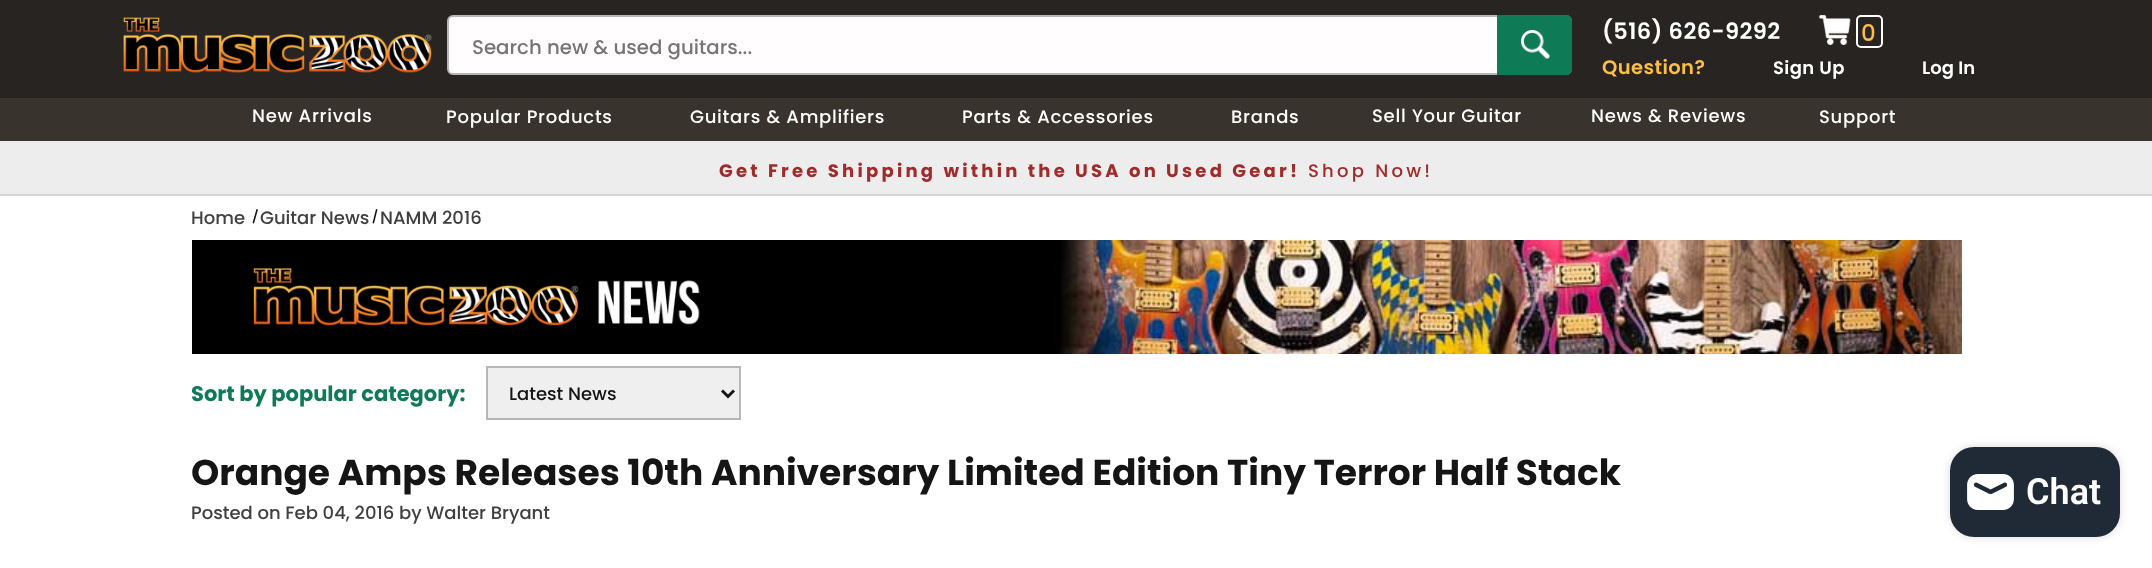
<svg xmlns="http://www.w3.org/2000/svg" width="2152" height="568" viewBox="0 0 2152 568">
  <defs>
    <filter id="blur1" x="-50%" y="-200%" width="200%" height="500%"><feGaussianBlur stdDeviation="4"/></filter>
  </defs>
  <rect width="100%" height="100%" fill="#ffffff"/>
  <rect x="0" y="0" width="2152" height="98" fill="#282422"/>
  <rect x="0" y="194" width="2152" height="2" fill="#d6d6d6"/>
  <image x="123" y="17" width="309" height="56" href="img1.png"/>
  <rect x="448" y="16" width="1123" height="58" rx="5" fill="#fffdfd" stroke="#b7b7b7" stroke-width="2"/>
  <text x="472" y="54" font-family="Poppins" font-size="19.75" font-weight="500" fill="#757575">Search new &amp; used guitars...</text>
  <path d="M1497 15H1566C1569.5 15 1572 17.5 1572 21V69C1572 72.5 1569.5 75 1566 75H1497Z" fill="#0f7a56"/>
  <image x="1521" y="30" width="29" height="29" href="img2.png"/>
  <text x="1602" y="39" font-family="Poppins" font-size="22.5" font-weight="600" letter-spacing="0.4" fill="#ffffff">(516) 626-9292</text>
  <image x="1818" y="15" width="33" height="30" href="img3.png"/>
  <rect x="1857" y="16" width="25" height="31" rx="4" fill="none" stroke="#ffffff" stroke-width="2"/>
  <text x="1861" y="41" font-family="Poppins" font-size="23" font-weight="500" letter-spacing="0.4" fill="#fcbf45">0</text>
  <text x="1602" y="74" font-family="Poppins" font-size="19.5" font-weight="600" letter-spacing="0.4" fill="#fcbf45">Question?</text>
  <text x="1773" y="74" font-family="Poppins" font-size="18" font-weight="600" letter-spacing="0.4" fill="#ffffff">Sign Up</text>
  <text x="1922" y="74" font-family="Poppins" font-size="18" font-weight="600" fill="#ffffff">Log In</text>
  <rect x="0" y="98" width="2152" height="43" fill="#38332d"/>
  <text x="252" y="122" font-family="Poppins" font-size="18" font-weight="500" letter-spacing="0.75" fill="#ffffff">New Arrivals</text>
  <text x="446" y="123" font-family="Poppins" font-size="18" font-weight="500" letter-spacing="0.75" fill="#ffffff">Popular Products</text>
  <text x="690" y="123" font-family="Poppins" font-size="18" font-weight="500" letter-spacing="0.75" fill="#ffffff">Guitars &amp; Amplifiers</text>
  <text x="962" y="123" font-family="Poppins" font-size="18" font-weight="500" letter-spacing="0.75" fill="#ffffff">Parts &amp; Accessories</text>
  <text x="1231" y="123" font-family="Poppins" font-size="18" font-weight="500" letter-spacing="0.75" fill="#ffffff">Brands</text>
  <text x="1372" y="122" font-family="Poppins" font-size="18" font-weight="500" letter-spacing="0.75" fill="#ffffff">Sell Your Guitar</text>
  <text x="1591" y="122" font-family="Poppins" font-size="18" font-weight="500" letter-spacing="0.75" fill="#ffffff">News &amp; Reviews</text>
  <text x="1819" y="123" font-family="Poppins" font-size="18" font-weight="500" letter-spacing="0.75" fill="#ffffff">Support</text>
  <rect x="0" y="141" width="2152" height="53" fill="#ededed"/>
  <text x="719" y="177" font-family="Poppins" font-size="18" font-weight="bold" letter-spacing="3.25" fill="#a12a2a">Get Free Shipping within the USA on Used Gear!</text>
  <text x="1308" y="177" font-family="Poppins" font-size="18" font-weight="500" letter-spacing="3.25" fill="#a12a2a">Shop Now!</text>
  <text x="191" y="224" font-family="Poppins" font-size="18" font-weight="500" fill="#404040">Home</text>
  <path d="M256.5 209L258 209.5L254 223.5L252.5 223Z" fill="#151515"/>
  <text x="260" y="224" font-family="Poppins" font-size="18" font-weight="500" fill="#404040">Guitar News</text>
  <path d="M376 209L377.5 209.5L374 223.5L372.5 223Z" fill="#151515"/>
  <text x="380" y="224" font-family="Poppins" font-size="18" font-weight="500" fill="#404040">NAMM 2016</text>
  <image x="192" y="240" width="1770" height="114" href="img4.png"/>
  <image x="253" y="268" width="448" height="58" href="img5.png"/>
  <text x="191" y="401" font-family="Poppins" font-size="21" font-weight="bold" fill="#0e7a57">Sort by popular category:</text>
  <rect x="487" y="367" width="253" height="52" fill="#efefef" stroke="#b7b7b7" stroke-width="2"/>
  <path d="M722 390.5L728 396.5L734 390.5" fill="none" stroke="#151515" stroke-width="3"/>
  <text x="509" y="400" font-family="Poppins" font-size="18" font-weight="500" fill="#151515">Latest News</text>
  <text x="191" y="485" font-family="Poppins" font-size="36" font-weight="bold" fill="#151515">Orange Amps Releases 10th Anniversary Limited Edition Tiny Terror Half Stack</text>
  <text x="191" y="519" font-family="Poppins" font-size="18" font-weight="500" fill="#404040">Posted on Feb 04, 2016 by Walter Bryant</text>
  <rect x="1950" y="447" width="170" height="90" rx="24" fill="#000000" fill-opacity="0.15" filter="url(#blur1)"/>
  <rect x="1950" y="447" width="170" height="90" rx="24" fill="#202a36"/>
  <image x="1967" y="474" width="47" height="36" href="img6.png"/>
  <text x="2026" y="504" font-family="Roboto" font-size="36" font-weight="600" fill="#ffffff">Chat</text>
</svg>
